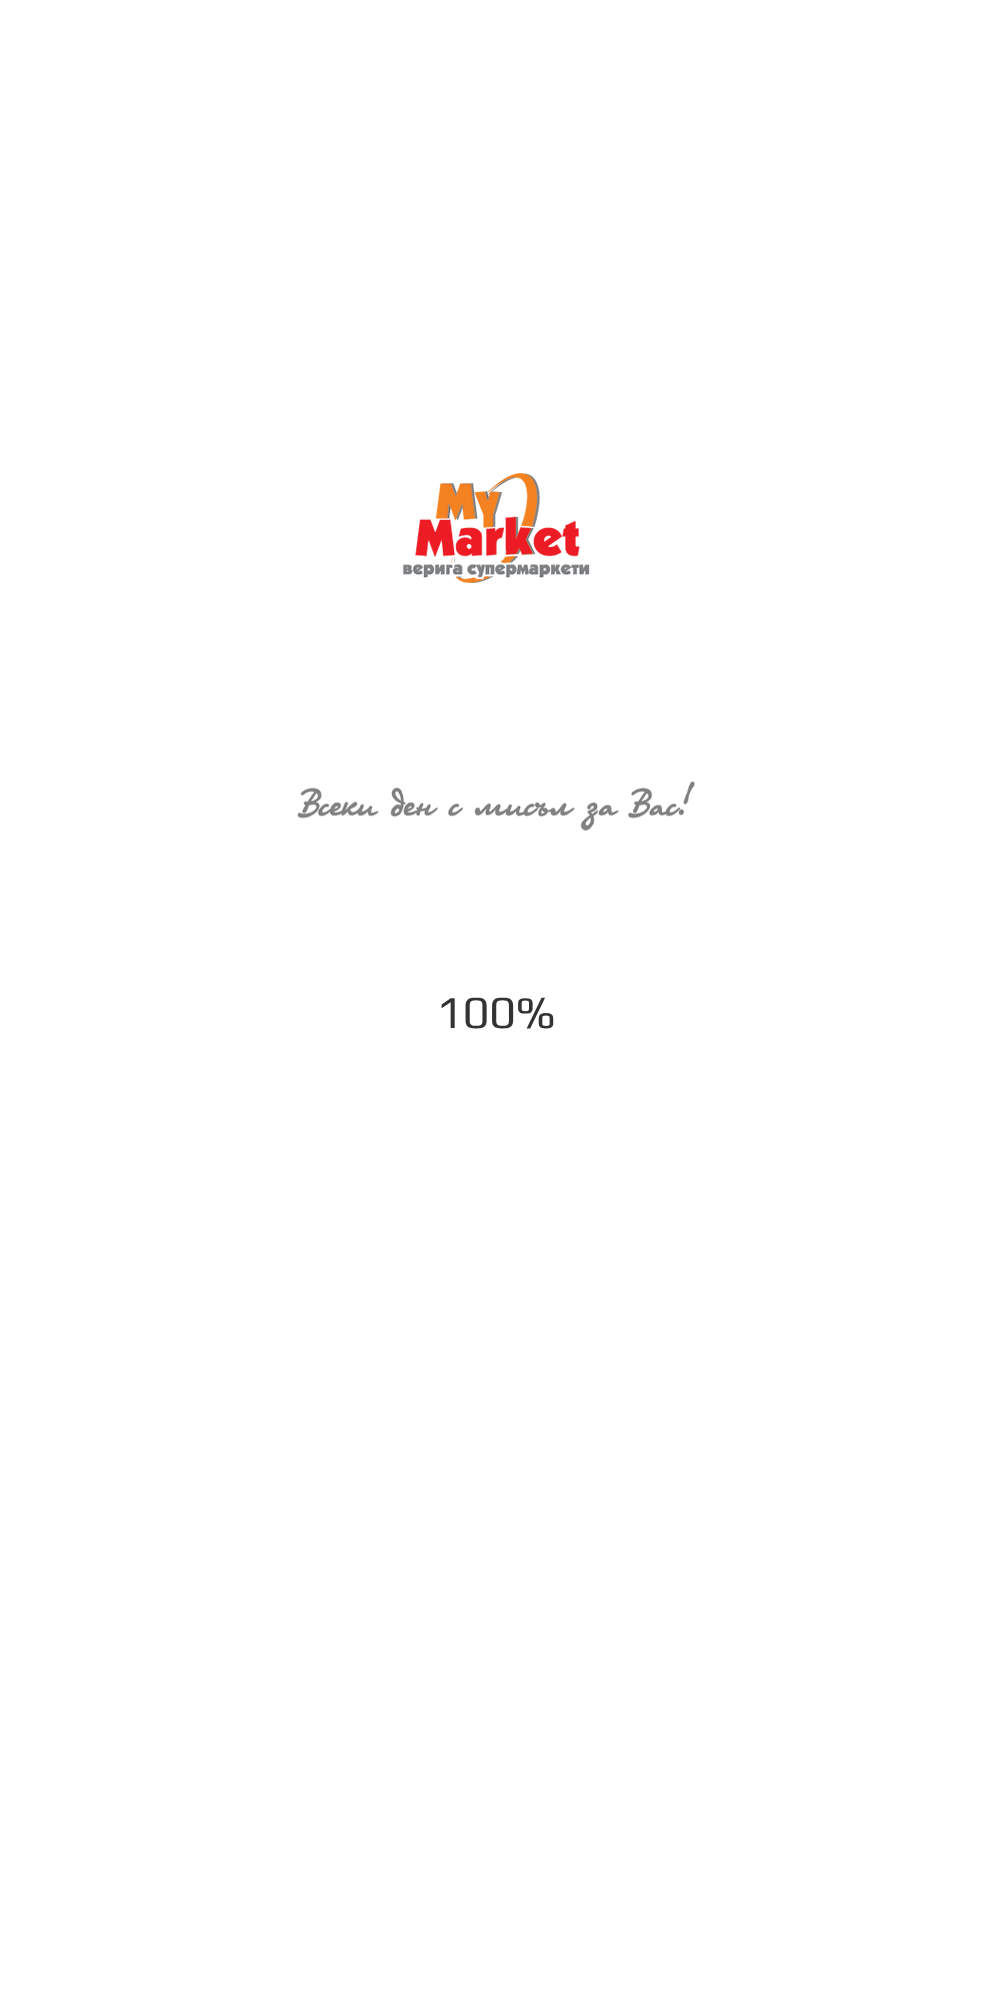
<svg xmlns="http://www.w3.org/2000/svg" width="992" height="2000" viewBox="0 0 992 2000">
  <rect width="100%" height="100%" fill="#ffffff"/>
  <image x="402" y="473" width="188" height="110" href="img1.png"/>
  <image x="297" y="781" width="398" height="50" href="img2.png"/>
  <text x="436" y="1028" font-family="Play" font-size="46" fill="#333333">100%</text>
</svg>
